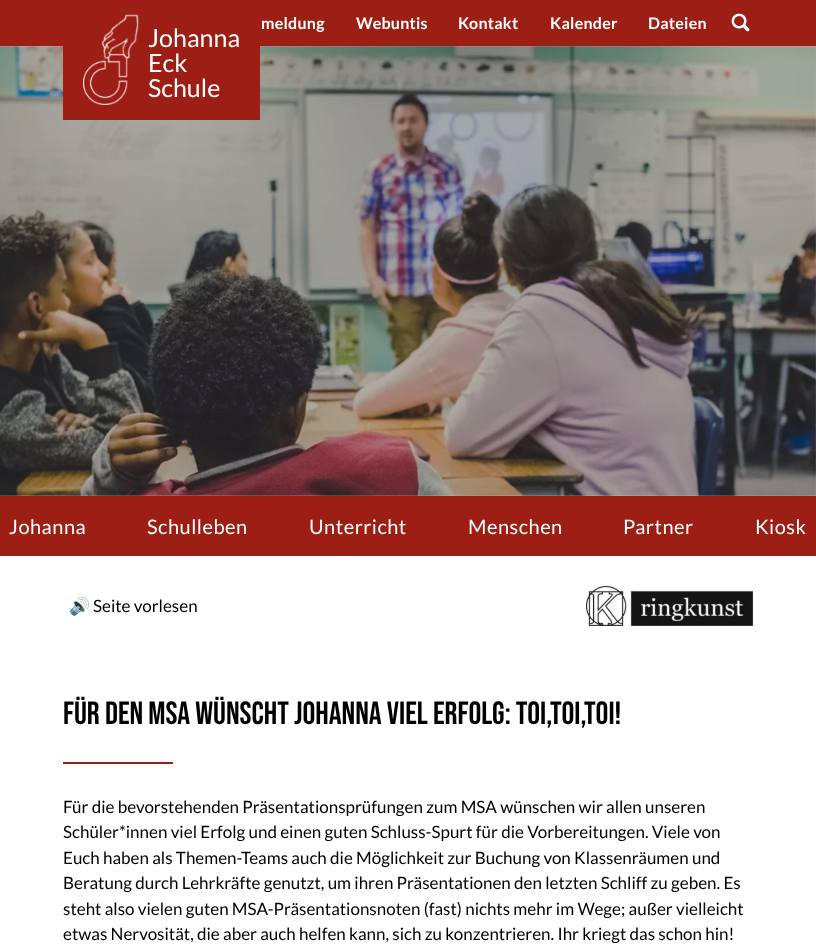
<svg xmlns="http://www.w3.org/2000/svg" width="816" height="944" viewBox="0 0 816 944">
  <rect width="100%" height="100%" fill="#ffffff"/>
  <rect x="0" y="0" width="816" height="46" fill="#9d1e15"/>
  <text x="261" y="29" font-family="Lato" font-size="16" font-weight="bold" letter-spacing="0.25" fill="#ffffff">meldung</text>
  <text x="356" y="29" font-family="Lato" font-size="16" font-weight="bold" letter-spacing="0.25" fill="#ffffff">Webuntis</text>
  <text x="458" y="29" font-family="Lato" font-size="16" font-weight="bold" letter-spacing="0.25" fill="#ffffff">Kontakt</text>
  <text x="550" y="29" font-family="Lato" font-size="16" font-weight="bold" letter-spacing="0.25" fill="#ffffff">Kalender</text>
  <text x="648" y="29" font-family="Lato" font-size="16" font-weight="bold" letter-spacing="0.25" fill="#ffffff">Dateien</text>
  <image x="731" y="13" width="19" height="19" href="img1.png"/>
  <image x="0" y="46" width="816" height="450" href="img3.png"/>
  <rect x="0" y="46" width="816" height="450" fill="#000000" fill-opacity="0.2"/>
  <rect x="63" y="46" width="197" height="74" fill="#9d1e15"/>
  <image x="83" y="14" width="56" height="91" href="img2.png"/>
  <text x="148" y="47" font-family="Lato" font-size="25" fill="#ffffff">Johanna</text>
  <text x="148" y="72" font-family="Lato" font-size="25" fill="#ffffff">Eck</text>
  <text x="148" y="97" font-family="Lato" font-size="25" fill="#ffffff">Schule</text>
  <rect x="0" y="496" width="816" height="60" fill="#9d1e15"/>
  <text x="9" y="534" font-family="Lato" font-size="20" letter-spacing="0.5" fill="#ffffff">Johanna</text>
  <text x="147" y="534" font-family="Lato" font-size="20" letter-spacing="0.5" fill="#ffffff">Schulleben</text>
  <text x="309" y="534" font-family="Lato" font-size="20" letter-spacing="0.5" fill="#ffffff">Unterricht</text>
  <text x="468" y="534" font-family="Lato" font-size="20" letter-spacing="0.5" fill="#ffffff">Menschen</text>
  <text x="623" y="534" font-family="Lato" font-size="20" letter-spacing="0.5" fill="#ffffff">Partner</text>
  <text x="755" y="534" font-family="Lato" font-size="20" letter-spacing="0.5" fill="#ffffff">Kiosk</text>
  <text x="69" y="612" font-family="Noto Color Emoji" font-size="17" fill="#000000">🔊</text>
  <text x="93" y="612" font-family="Lato" font-size="17" fill="#000000">Seite vorlesen</text>
  <image x="586" y="585" width="167" height="41" href="img4.png"/>
  <text x="63" y="724" font-family="Bebas Neue" font-size="32" fill="#000000">Für den MSA wünscht Johanna viel Erfolg: Toi,toi,toi!</text>
  <rect x="63" y="762" width="110" height="2" fill="#9d1e15"/>
  <text x="63" y="813" font-family="Lato" font-size="17" fill="#000000">Für die bevorstehenden Präsentationsprüfungen zum MSA wünschen wir allen unseren</text>
  <text x="63" y="838" font-family="Lato" font-size="17" fill="#000000">Schüler*innen viel Erfolg und einen guten Schluss-Spurt für die Vorbereitungen. Viele von</text>
  <text x="63" y="864" font-family="Lato" font-size="17" fill="#000000">Euch haben als Themen-Teams auch die Möglichkeit zur Buchung von Klassenräumen und</text>
  <text x="63" y="889" font-family="Lato" font-size="17" fill="#000000">Beratung durch Lehrkräfte genutzt, um ihren Präsentationen den letzten Schliff zu geben. Es</text>
  <text x="63" y="915" font-family="Lato" font-size="17" fill="#000000">steht also vielen guten MSA-Präsentationsnoten (fast) nichts mehr im Wege; außer vielleicht</text>
  <text x="63" y="940" font-family="Lato" font-size="17" fill="#000000">etwas Nervosität, die aber auch helfen kann, sich zu konzentrieren. Ihr kriegt das schon hin!</text>
</svg>
